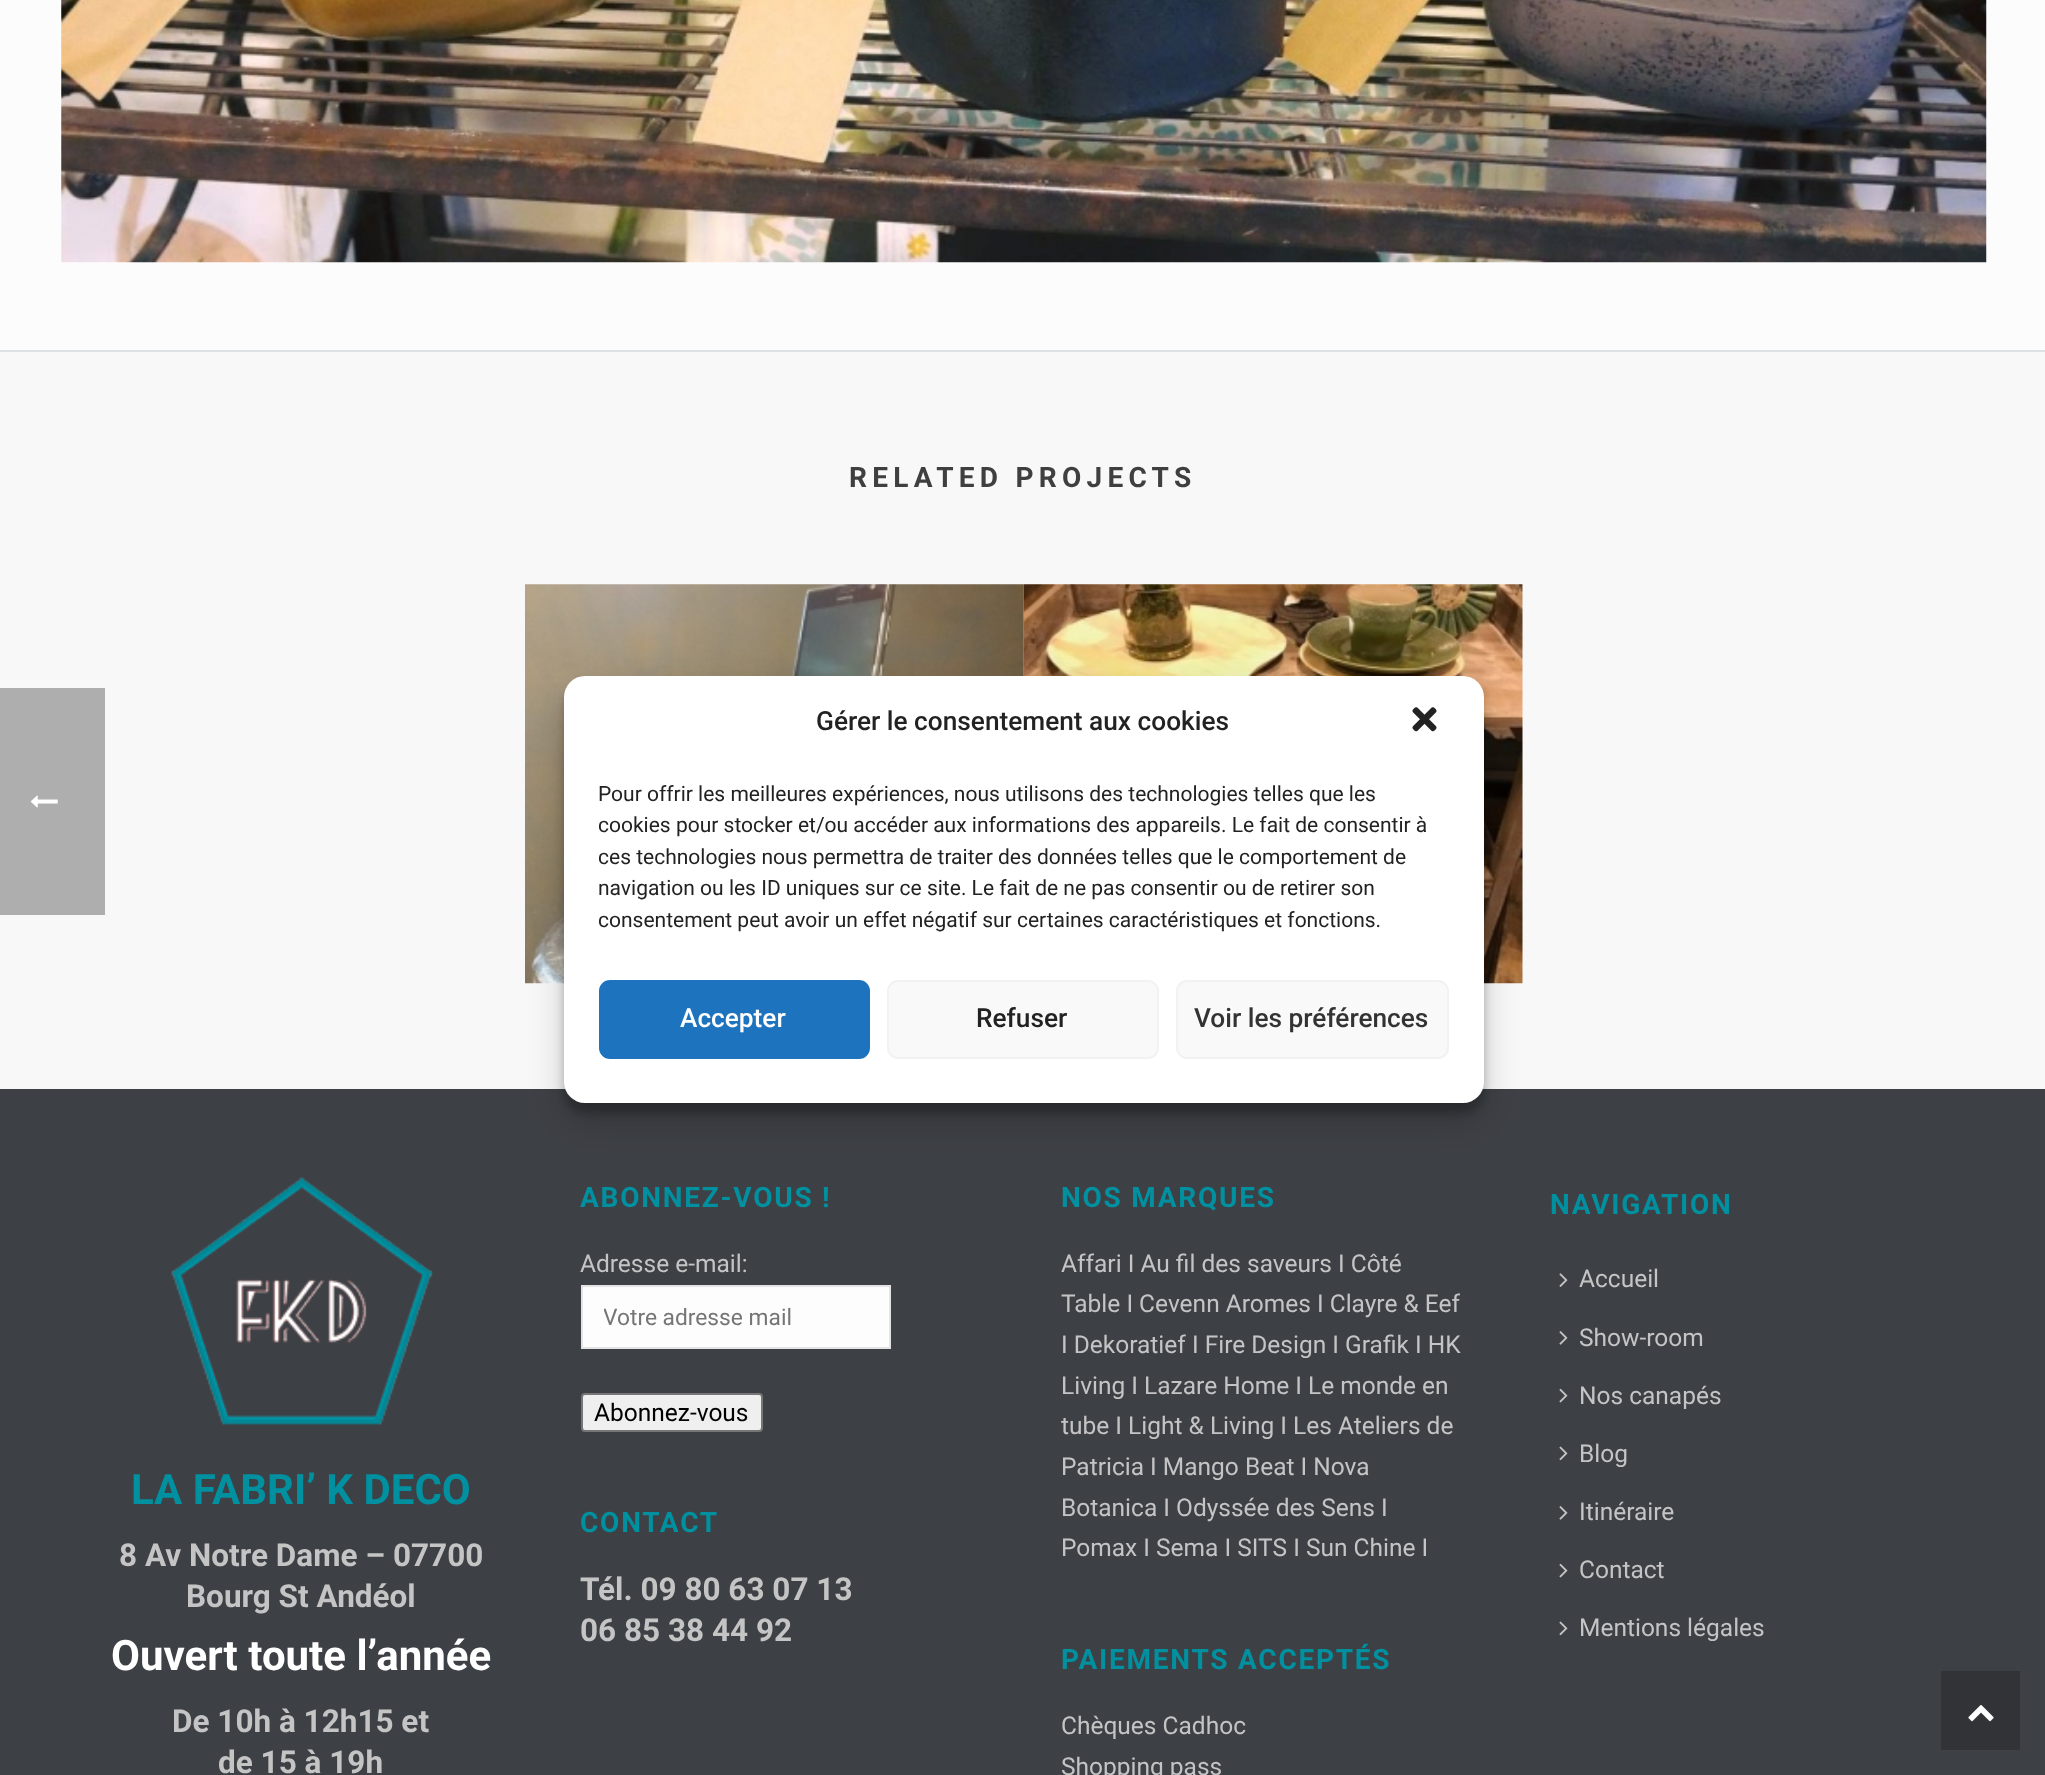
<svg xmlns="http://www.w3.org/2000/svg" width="2045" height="1775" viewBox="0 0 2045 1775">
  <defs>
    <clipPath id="clip1"><rect x="604" y="1304" width="264" height="26"/></clipPath>
    <filter id="blur1" x="-50%" y="-200%" width="200%" height="500%"><feGaussianBlur stdDeviation="5"/></filter>
    <filter id="blur2" x="-50%" y="-200%" width="200%" height="500%"><feGaussianBlur stdDeviation="17.5"/></filter>
    <clipPath id="clip2"><rect x="599" y="779" width="850" height="166"/></clipPath>
  </defs>
  <rect width="100%" height="100%" fill="#3d4045"/>
  <rect x="0" y="352" width="2045" height="737" fill="#f8f8f8"/>
  <rect x="0" y="688" width="105" height="227" fill="#aeaeae"/>
  <image x="30" y="795" width="28" height="13" href="img1.png"/>
  <rect x="0" y="0" width="2045" height="350" fill="#fcfcfc"/>
  <image x="61" y="0" width="1926" height="263" href="img2.png"/>
  <rect x="0" y="350" width="2045" height="2" fill="#dfe2e5"/>
  <text x="849" y="487" font-family="Roboto" font-size="28" font-weight="bold" letter-spacing="5.25" fill="#3f3f3f">RELATED PROJECTS</text>
  <image x="525" y="584" width="499" height="400" href="img3.png"/>
  <image x="1023" y="584" width="500" height="400" href="img4.png"/>
  <image x="171" y="1177" width="262" height="248" href="img5.png"/>
  <text x="131" y="1504" font-family="Roboto" font-size="42" font-weight="bold" fill="#00909f">LA FABRI’ K DECO</text>
  <text x="119" y="1566" font-family="Roboto" font-size="31.5" font-weight="bold" fill="#c4c4c4">8 Av Notre Dame – 07700</text>
  <text x="186" y="1607" font-family="Roboto" font-size="31.5" font-weight="bold" fill="#c4c4c4">Bourg St Andéol</text>
  <text x="111" y="1670" font-family="Roboto" font-size="42" font-weight="bold" fill="#ffffff">Ouvert toute l’année</text>
  <text x="172" y="1732" font-family="Roboto" font-size="31.5" font-weight="bold" fill="#c4c4c4">De 10h à 12h15 et</text>
  <text x="218" y="1773" font-family="Roboto" font-size="31.5" font-weight="bold" fill="#c4c4c4">de 15 à 19h</text>
  <text x="580" y="1207" font-family="Roboto" font-size="28" font-weight="bold" letter-spacing="1.75" fill="#00909f">ABONNEZ-VOUS !</text>
  <text x="580" y="1272" font-family="Roboto" font-size="24.5" fill="#c4c4c4">Adresse e-mail:</text>
  <rect x="582" y="1286" width="308" height="62" fill="#fdfdfd" stroke="#e3e3e3" stroke-width="2"/>
  <g clip-path="url(#clip1)">
    <text x="603" y="1325" font-family="Roboto" font-size="22.75" fill="#757575">Votre adresse mail</text>
  </g>
  <rect x="582" y="1394" width="180" height="37" rx="3" fill="#efefef" stroke="#767676" stroke-width="2"/>
  <text x="594" y="1421" font-family="Roboto" font-size="24.5" fill="#000000">Abonnez-vous</text>
  <text x="580" y="1532" font-family="Roboto" font-size="28" font-weight="bold" letter-spacing="1.75" fill="#00909f">CONTACT</text>
  <text x="580" y="1600" font-family="Roboto" font-size="31.5" font-weight="bold" fill="#c4c4c4">Tél. 09 80 63 07 13</text>
  <text x="580" y="1641" font-family="Roboto" font-size="31.5" font-weight="bold" fill="#c4c4c4">06 85 38 44 92</text>
  <text x="1061" y="1207" font-family="Roboto" font-size="28" font-weight="bold" letter-spacing="1.75" fill="#00909f">NOS MARQUES</text>
  <text x="1061" y="1272" font-family="Roboto" font-size="24.5" fill="#c4c4c4">Affari I Au fil des saveurs I Côté</text>
  <text x="1061" y="1312" font-family="Roboto" font-size="24.5" fill="#c4c4c4">Table I Cevenn Aromes I Clayre &amp; Eef</text>
  <text x="1061" y="1353" font-family="Roboto" font-size="24.5" fill="#c4c4c4">I Dekoratief I Fire Design I Grafik I HK</text>
  <text x="1061" y="1394" font-family="Roboto" font-size="24.5" fill="#c4c4c4">Living I Lazare Home I Le monde en</text>
  <text x="1061" y="1434" font-family="Roboto" font-size="24.5" fill="#c4c4c4">tube I Light &amp; Living I Les Ateliers de</text>
  <text x="1061" y="1475" font-family="Roboto" font-size="24.5" fill="#c4c4c4">Patricia I Mango Beat I Nova</text>
  <text x="1061" y="1516" font-family="Roboto" font-size="24.5" fill="#c4c4c4">Botanica I Odyssée des Sens I</text>
  <text x="1061" y="1556" font-family="Roboto" font-size="24.5" fill="#c4c4c4">Pomax I Sema I SITS I Sun Chine I</text>
  <text x="1061" y="1669" font-family="Roboto" font-size="28" font-weight="bold" letter-spacing="1.75" fill="#00909f">PAIEMENTS ACCEPTÉS</text>
  <text x="1061" y="1734" font-family="Roboto" font-size="24.5" fill="#c4c4c4">Chèques Cadhoc</text>
  <text x="1061" y="1775" font-family="Roboto" font-size="24.5" fill="#c4c4c4">Shopping pass</text>
  <text x="1550" y="1214" font-family="Roboto" font-size="28" font-weight="bold" letter-spacing="1.75" fill="#00909f">NAVIGATION</text>
  <image x="1559" y="1273" width="9" height="14" href="img6.png"/>
  <text x="1579" y="1287" font-family="Roboto" font-size="24.5" fill="#c4c4c4">Accueil</text>
  <image x="1559" y="1331" width="9" height="14" href="img7.png"/>
  <text x="1579" y="1346" font-family="Roboto" font-size="24.5" fill="#c4c4c4">Show-room</text>
  <image x="1559" y="1388" width="9" height="15" href="img8.png"/>
  <text x="1579" y="1404" font-family="Roboto" font-size="24.5" fill="#c4c4c4">Nos canapés</text>
  <image x="1559" y="1446" width="9" height="15" href="img9.png"/>
  <text x="1579" y="1462" font-family="Roboto" font-size="24.5" fill="#c4c4c4">Blog</text>
  <image x="1559" y="1506" width="9" height="14" href="img7.png"/>
  <text x="1579" y="1520" font-family="Roboto" font-size="24.5" fill="#c4c4c4">Itinéraire</text>
  <image x="1559" y="1563" width="9" height="15" href="img8.png"/>
  <text x="1579" y="1578" font-family="Roboto" font-size="24.5" fill="#c4c4c4">Contact</text>
  <image x="1559" y="1621" width="9" height="15" href="img9.png"/>
  <text x="1579" y="1636" font-family="Roboto" font-size="24.5" fill="#c4c4c4">Mentions légales</text>
  <rect x="564" y="686" width="920" height="427" rx="21" fill="#000000" fill-opacity="0.23" filter="url(#blur1)"/>
  <rect x="564" y="693" width="920" height="427" rx="21" fill="#000000" fill-opacity="0.19" filter="url(#blur2)"/>
  <rect x="564" y="676" width="920" height="427" rx="21" fill="#ffffff"/>
  <text x="816" y="730" font-family="Roboto" font-size="26.25" font-weight="500" fill="#222222">Gérer le consentement aux cookies</text>
  <image x="1412" y="707" width="25" height="25" href="img10.png"/>
  <text x="598" y="801" font-family="Roboto" font-size="21" fill="#222222">Pour offrir les meilleures expériences, nous utilisons des technologies telles que les</text>
  <g clip-path="url(#clip2)">
    <text x="598" y="832" font-family="Roboto" font-size="21" fill="#222222">cookies pour stocker et/ou accéder aux informations des appareils. Le fait de consentir à</text>
    <text x="598" y="864" font-family="Roboto" font-size="21" fill="#222222">ces technologies nous permettra de traiter des données telles que le comportement de</text>
  </g>
  <text x="598" y="895" font-family="Roboto" font-size="21" fill="#222222">navigation ou les ID uniques sur ce site. Le fait de ne pas consentir ou de retirer son</text>
  <g clip-path="url(#clip2)">
    <text x="598" y="927" font-family="Roboto" font-size="21" fill="#222222">consentement peut avoir un effet négatif sur certaines caractéristiques et fonctions.</text>
  </g>
  <rect x="600" y="981" width="269" height="77" rx="10" fill="#1e73be" stroke="#1e73be" stroke-width="2"/>
  <text x="680" y="1027" font-family="Roboto" font-size="26.25" font-weight="500" fill="#ffffff">Accepter</text>
  <rect x="888" y="981" width="270" height="77" rx="10" fill="#f9f9f9" stroke="#f2f2f2" stroke-width="2"/>
  <text x="976" y="1027" font-family="Roboto" font-size="26.25" font-weight="500" fill="#222222">Refuser</text>
  <rect x="1177" y="981" width="271" height="77" rx="10" fill="#f9f9f9" stroke="#f2f2f2" stroke-width="2"/>
  <text x="1194" y="1027" font-family="Roboto" font-size="26.25" font-weight="500" fill="#333333">Voir les préférences</text>
  <rect x="1941" y="1671" width="79" height="79" fill="#313337"/>
  <image x="1968" y="1705" width="26" height="17" href="img11.png"/>
</svg>
